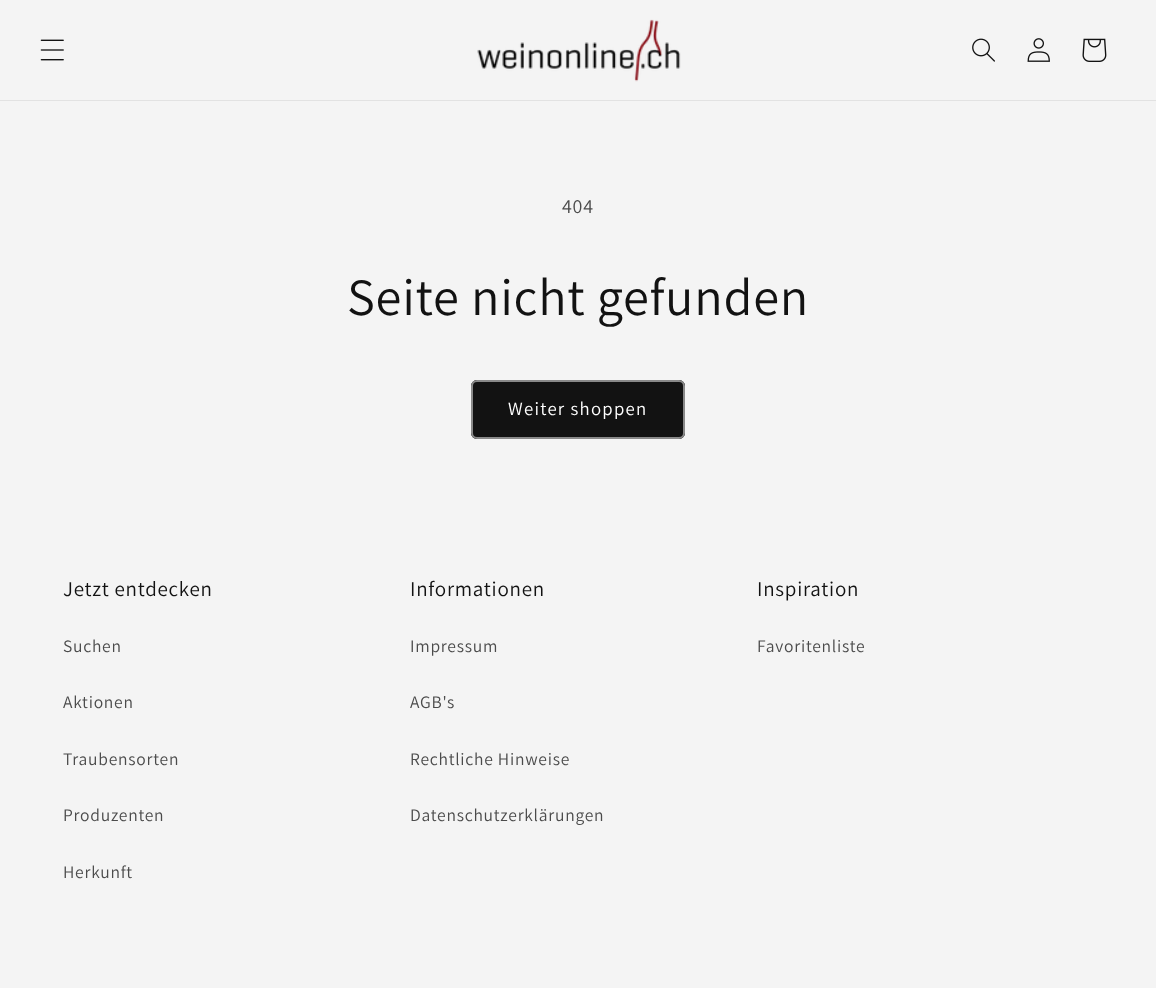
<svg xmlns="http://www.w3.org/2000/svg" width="1156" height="988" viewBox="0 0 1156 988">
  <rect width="100%" height="100%" fill="#f4f4f4"/>
  <rect x="0" y="100" width="1156" height="1" fill="#e2e2e2"/>
  <image x="40" y="39" width="24" height="22" href="img1.png"/>
  <image x="477" y="19" width="204" height="63" href="img2.png"/>
  <image x="972" y="38" width="23" height="24" href="img3.png"/>
  <image x="1027" y="38" width="23" height="24" href="img4.png"/>
  <image x="1082" y="38" width="25" height="24" href="img5.png"/>
  <text x="562" y="213" font-family="Assistant" font-size="20" letter-spacing="0.75" fill="#4b4b4b">404</text>
  <text x="347" y="315" font-family="Assistant" font-size="52.5" letter-spacing="0.75" fill="#121212">Seite nicht gefunden</text>
  <rect x="471" y="380" width="214" height="59" rx="6" fill="#121212"/>
  <rect x="471.5" y="380.5" width="213" height="58" rx="5.5" fill="none" stroke="#121212"/>
  <rect x="472" y="381" width="212" height="57" rx="5" fill="none" stroke="#ffffff" stroke-opacity="0.5" stroke-width="2"/>
  <text x="508" y="415" font-family="Assistant" font-size="18.75" letter-spacing="1.25" fill="#ffffff">Weiter shoppen</text>
  <text x="63" y="596" font-family="Assistant" font-size="21" letter-spacing="0.75" fill="#121212">Jetzt entdecken</text>
  <text x="63" y="652" font-family="Assistant" font-size="17.5" letter-spacing="0.75" fill="#4b4b4b">Suchen</text>
  <text x="63" y="708" font-family="Assistant" font-size="17.5" letter-spacing="0.75" fill="#4b4b4b">Aktionen</text>
  <text x="63" y="765" font-family="Assistant" font-size="17.5" letter-spacing="0.75" fill="#4b4b4b">Traubensorten</text>
  <text x="63" y="821" font-family="Assistant" font-size="17.5" letter-spacing="0.75" fill="#4b4b4b">Produzenten</text>
  <text x="63" y="878" font-family="Assistant" font-size="17.5" letter-spacing="0.75" fill="#4b4b4b">Herkunft</text>
  <text x="410" y="596" font-family="Assistant" font-size="21" letter-spacing="0.75" fill="#121212">Informationen</text>
  <text x="410" y="652" font-family="Assistant" font-size="17.5" letter-spacing="0.75" fill="#4b4b4b">Impressum</text>
  <text x="410" y="708" font-family="Assistant" font-size="17.5" letter-spacing="0.75" fill="#4b4b4b">AGB's</text>
  <text x="410" y="765" font-family="Assistant" font-size="17.5" letter-spacing="0.75" fill="#4b4b4b">Rechtliche Hinweise</text>
  <text x="410" y="821" font-family="Assistant" font-size="17.5" letter-spacing="0.75" fill="#4b4b4b">Datenschutzerklärungen</text>
  <text x="757" y="596" font-family="Assistant" font-size="21" letter-spacing="0.75" fill="#121212">Inspiration</text>
  <text x="757" y="652" font-family="Assistant" font-size="17.5" letter-spacing="0.75" fill="#4b4b4b">Favoritenliste</text>
</svg>
